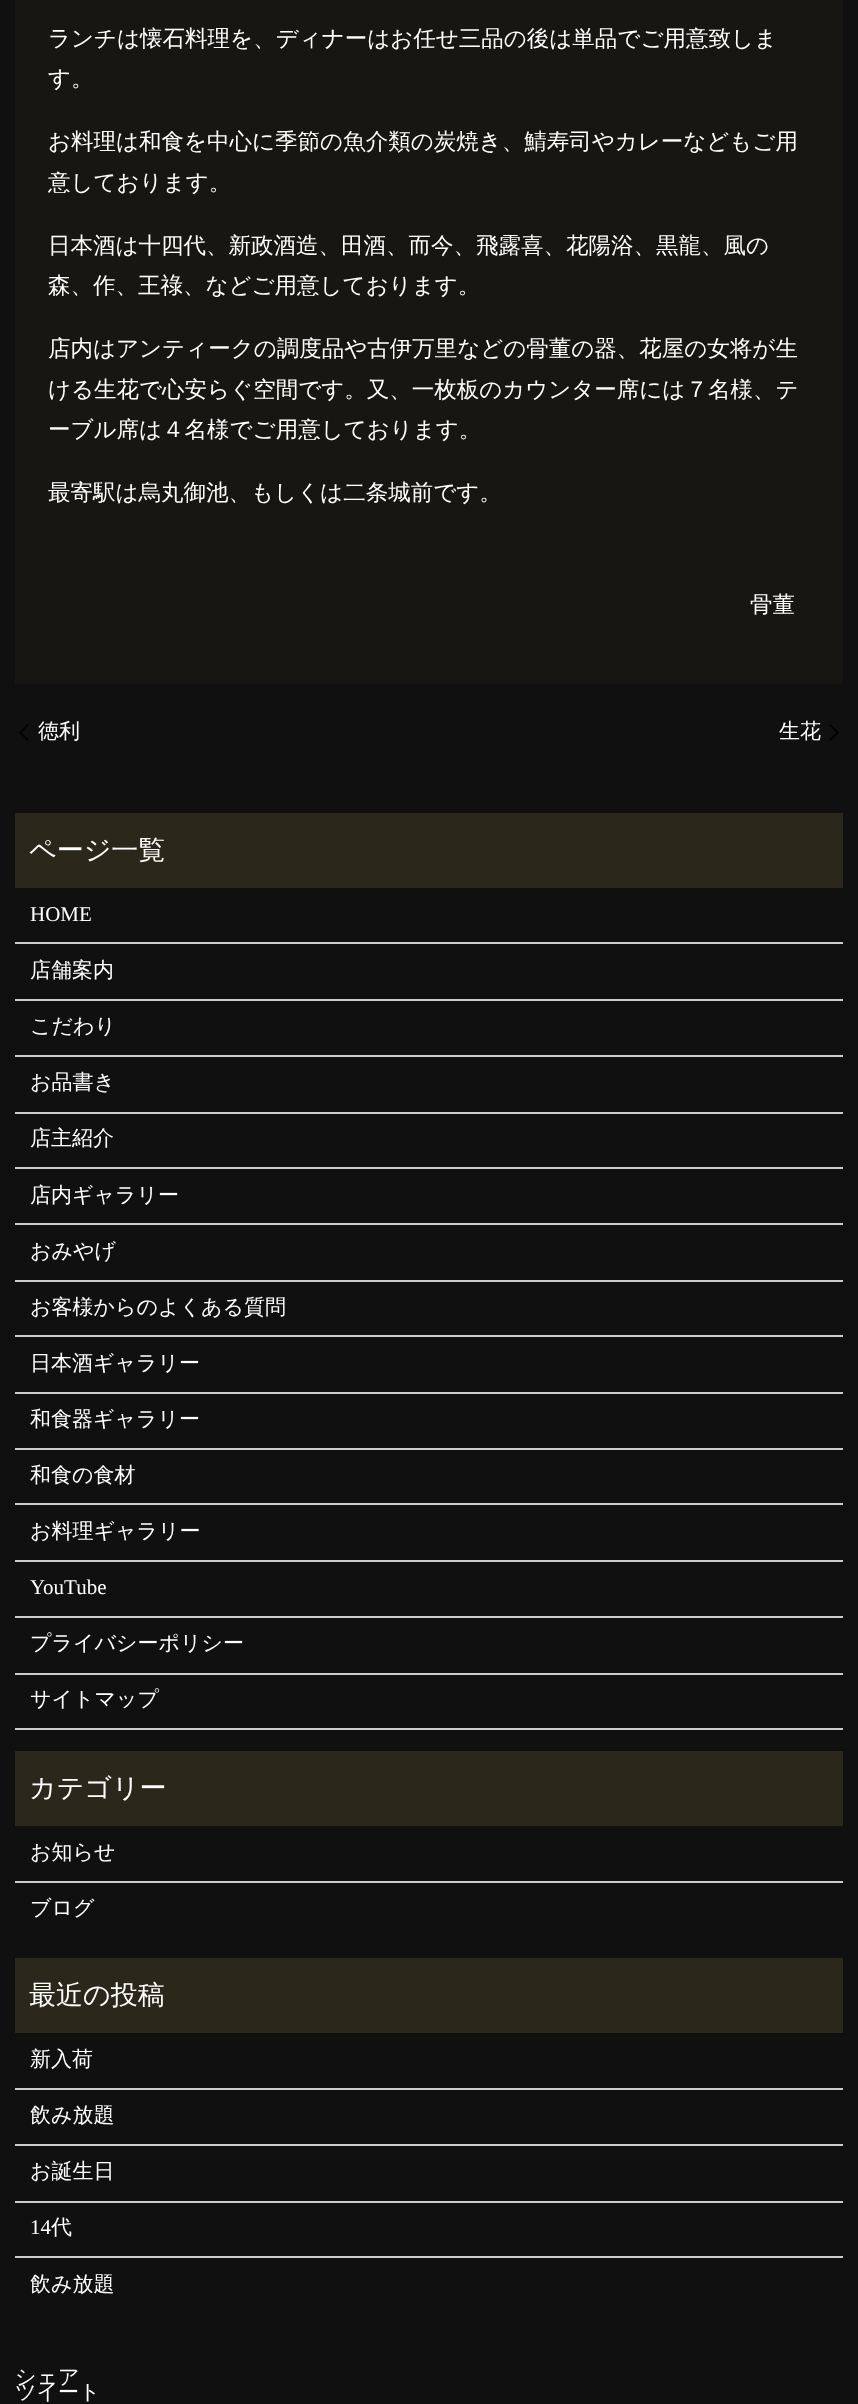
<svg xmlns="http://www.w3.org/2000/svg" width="858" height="2404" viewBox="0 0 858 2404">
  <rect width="100%" height="100%" fill="#101010"/>
  <rect x="15" y="0" width="828" height="684" fill="#171613"/>
  <text x="48" y="46" font-family="WenQuanYi Zen Hei" font-size="22.5" font-weight="500" fill="#ffffff">ランチは懐石料理を、ディナーはお任せ三品の後は単品でご用意致しま</text>
  <text x="48" y="86" font-family="WenQuanYi Zen Hei" font-size="22.5" font-weight="500" fill="#ffffff">す。</text>
  <text x="48" y="149" font-family="WenQuanYi Zen Hei" font-size="22.5" font-weight="500" fill="#ffffff">お料理は和食を中心に季節の魚介類の炭焼き、鯖寿司やカレーなどもご用</text>
  <text x="48" y="190" font-family="WenQuanYi Zen Hei" font-size="22.5" font-weight="500" fill="#ffffff">意しております。</text>
  <text x="48" y="253" font-family="WenQuanYi Zen Hei" font-size="22.5" font-weight="500" fill="#ffffff">日本酒は十四代、新政酒造、田酒、而今、飛露喜、花陽浴、黒龍、風の</text>
  <text x="48" y="293" font-family="WenQuanYi Zen Hei" font-size="22.5" font-weight="500" fill="#ffffff">森、作、王祿、などご用意しております。</text>
  <text x="48" y="356" font-family="WenQuanYi Zen Hei" font-size="22.5" font-weight="500" fill="#ffffff">店内はアンティークの調度品や古伊万里などの骨董の器、花屋の女将が生</text>
  <text x="48" y="397" font-family="WenQuanYi Zen Hei" font-size="22.5" font-weight="500" fill="#ffffff">ける生花で心安らぐ空間です。又、一枚板のカウンター席には７名様、テ</text>
  <text x="48" y="437" font-family="WenQuanYi Zen Hei" font-size="22.5" font-weight="500" fill="#ffffff">ーブル席は４名様でご用意しております。</text>
  <text x="48" y="500" font-family="WenQuanYi Zen Hei" font-size="22.5" font-weight="500" fill="#ffffff">最寄駅は烏丸御池、もしくは二条城前です。</text>
  <text x="750" y="612" font-family="WenQuanYi Zen Hei" font-size="22.5" font-weight="500" fill="#ffffff">骨董</text>
  <path d="M19 732.5L27.5 724L29 725L20.5 733.5Z" fill="#000000"/>
  <text x="38" y="738" font-family="WenQuanYi Zen Hei" font-size="21" font-weight="500" fill="#ffffff">徳利</text>
  <path d="M27.5 741L19 732.5L20.5 731.5L29 740Z" fill="#000000"/>
  <text x="779" y="738" font-family="WenQuanYi Zen Hei" font-size="21" font-weight="500" fill="#ffffff">生花</text>
  <path d="M830.5 724L839 732.5L837.5 733.5L829 725Z" fill="#000000"/>
  <path d="M839 732.5L830.5 741L829 740L837.5 731.5Z" fill="#000000"/>
  <rect x="15" y="813" width="828" height="75" fill="#2b271a"/>
  <text x="29" y="859" font-family="WenQuanYi Zen Hei" font-size="27" font-weight="500" fill="#ffffff">ページ一覧</text>
  <rect x="15" y="942" width="828" height="2" fill="#cccccc"/>
  <text x="30" y="921" font-family="Liberation Serif" font-size="21" fill="#ffffff">HOME</text>
  <rect x="15" y="999" width="828" height="2" fill="#cccccc"/>
  <text x="30" y="977" font-family="WenQuanYi Zen Hei" font-size="21" font-weight="500" fill="#ffffff">店舗案内</text>
  <rect x="15" y="1055" width="828" height="2" fill="#cccccc"/>
  <text x="30" y="1033" font-family="WenQuanYi Zen Hei" font-size="21" font-weight="500" fill="#ffffff">こだわり</text>
  <rect x="15" y="1112" width="828" height="2" fill="#cccccc"/>
  <text x="30" y="1089" font-family="WenQuanYi Zen Hei" font-size="21" font-weight="500" fill="#ffffff">お品書き</text>
  <rect x="15" y="1167" width="828" height="2" fill="#cccccc"/>
  <text x="30" y="1145" font-family="WenQuanYi Zen Hei" font-size="21" font-weight="500" fill="#ffffff">店主紹介</text>
  <rect x="15" y="1223" width="828" height="2" fill="#cccccc"/>
  <text x="30" y="1202" font-family="WenQuanYi Zen Hei" font-size="21" font-weight="500" fill="#ffffff">店内ギャラリー</text>
  <rect x="15" y="1280" width="828" height="2" fill="#cccccc"/>
  <text x="30" y="1258" font-family="WenQuanYi Zen Hei" font-size="21" font-weight="500" fill="#ffffff">おみやげ</text>
  <rect x="15" y="1335" width="828" height="2" fill="#cccccc"/>
  <text x="30" y="1314" font-family="WenQuanYi Zen Hei" font-size="21" font-weight="500" fill="#ffffff">お客様からのよくある質問</text>
  <rect x="15" y="1392" width="828" height="2" fill="#cccccc"/>
  <text x="30" y="1370" font-family="WenQuanYi Zen Hei" font-size="21" font-weight="500" fill="#ffffff">日本酒ギャラリー</text>
  <rect x="15" y="1448" width="828" height="2" fill="#cccccc"/>
  <text x="30" y="1426" font-family="WenQuanYi Zen Hei" font-size="21" font-weight="500" fill="#ffffff">和食器ギャラリー</text>
  <rect x="15" y="1503" width="828" height="2" fill="#cccccc"/>
  <text x="30" y="1482" font-family="WenQuanYi Zen Hei" font-size="21" font-weight="500" fill="#ffffff">和食の食材</text>
  <rect x="15" y="1560" width="828" height="2" fill="#cccccc"/>
  <text x="30" y="1538" font-family="WenQuanYi Zen Hei" font-size="21" font-weight="500" fill="#ffffff">お料理ギャラリー</text>
  <rect x="15" y="1616" width="828" height="2" fill="#cccccc"/>
  <text x="30" y="1594" font-family="Liberation Serif" font-size="21" fill="#ffffff">YouTube</text>
  <rect x="15" y="1673" width="828" height="2" fill="#cccccc"/>
  <text x="30" y="1650" font-family="WenQuanYi Zen Hei" font-size="21" font-weight="500" fill="#ffffff">プライバシーポリシー</text>
  <rect x="15" y="1728" width="828" height="2" fill="#cccccc"/>
  <text x="30" y="1706" font-family="WenQuanYi Zen Hei" font-size="21" font-weight="500" fill="#ffffff">サイトマップ</text>
  <rect x="15" y="1751" width="828" height="75" fill="#2b271a"/>
  <text x="29" y="1797" font-family="WenQuanYi Zen Hei" font-size="27" font-weight="500" fill="#ffffff">カテゴリー</text>
  <rect x="15" y="1881" width="828" height="2" fill="#cccccc"/>
  <text x="30" y="1859" font-family="WenQuanYi Zen Hei" font-size="21" font-weight="500" fill="#ffffff">お知らせ</text>
  <text x="30" y="1915" font-family="WenQuanYi Zen Hei" font-size="21" font-weight="500" fill="#ffffff">ブログ</text>
  <rect x="15" y="1958" width="828" height="75" fill="#2b271a"/>
  <text x="29" y="2004" font-family="WenQuanYi Zen Hei" font-size="27" font-weight="500" fill="#ffffff">最近の投稿</text>
  <rect x="15" y="2088" width="828" height="2" fill="#cccccc"/>
  <text x="30" y="2066" font-family="WenQuanYi Zen Hei" font-size="21" font-weight="500" fill="#ffffff">新入荷</text>
  <rect x="15" y="2144" width="828" height="2" fill="#cccccc"/>
  <text x="30" y="2122" font-family="WenQuanYi Zen Hei" font-size="21" font-weight="500" fill="#ffffff">飲み放題</text>
  <rect x="15" y="2201" width="828" height="2" fill="#cccccc"/>
  <text x="30" y="2178" font-family="WenQuanYi Zen Hei" font-size="21" font-weight="500" fill="#ffffff">お誕生日</text>
  <rect x="15" y="2256" width="828" height="2" fill="#cccccc"/>
  <text x="30" y="2234" font-family="Liberation Serif" font-size="21" fill="#ffffff">14</text>
  <text x="51" y="2234" font-family="WenQuanYi Zen Hei" font-size="21" font-weight="500" fill="#ffffff">代</text>
  <text x="30" y="2291" font-family="WenQuanYi Zen Hei" font-size="21" font-weight="500" fill="#ffffff">飲み放題</text>
  <text x="15" y="2384" font-family="WenQuanYi Zen Hei" font-size="21" font-weight="500" fill="#ffffff">シェア</text>
  <text x="15" y="2399" font-family="WenQuanYi Zen Hei" font-size="21" font-weight="500" fill="#ffffff">ツイート</text>
</svg>
